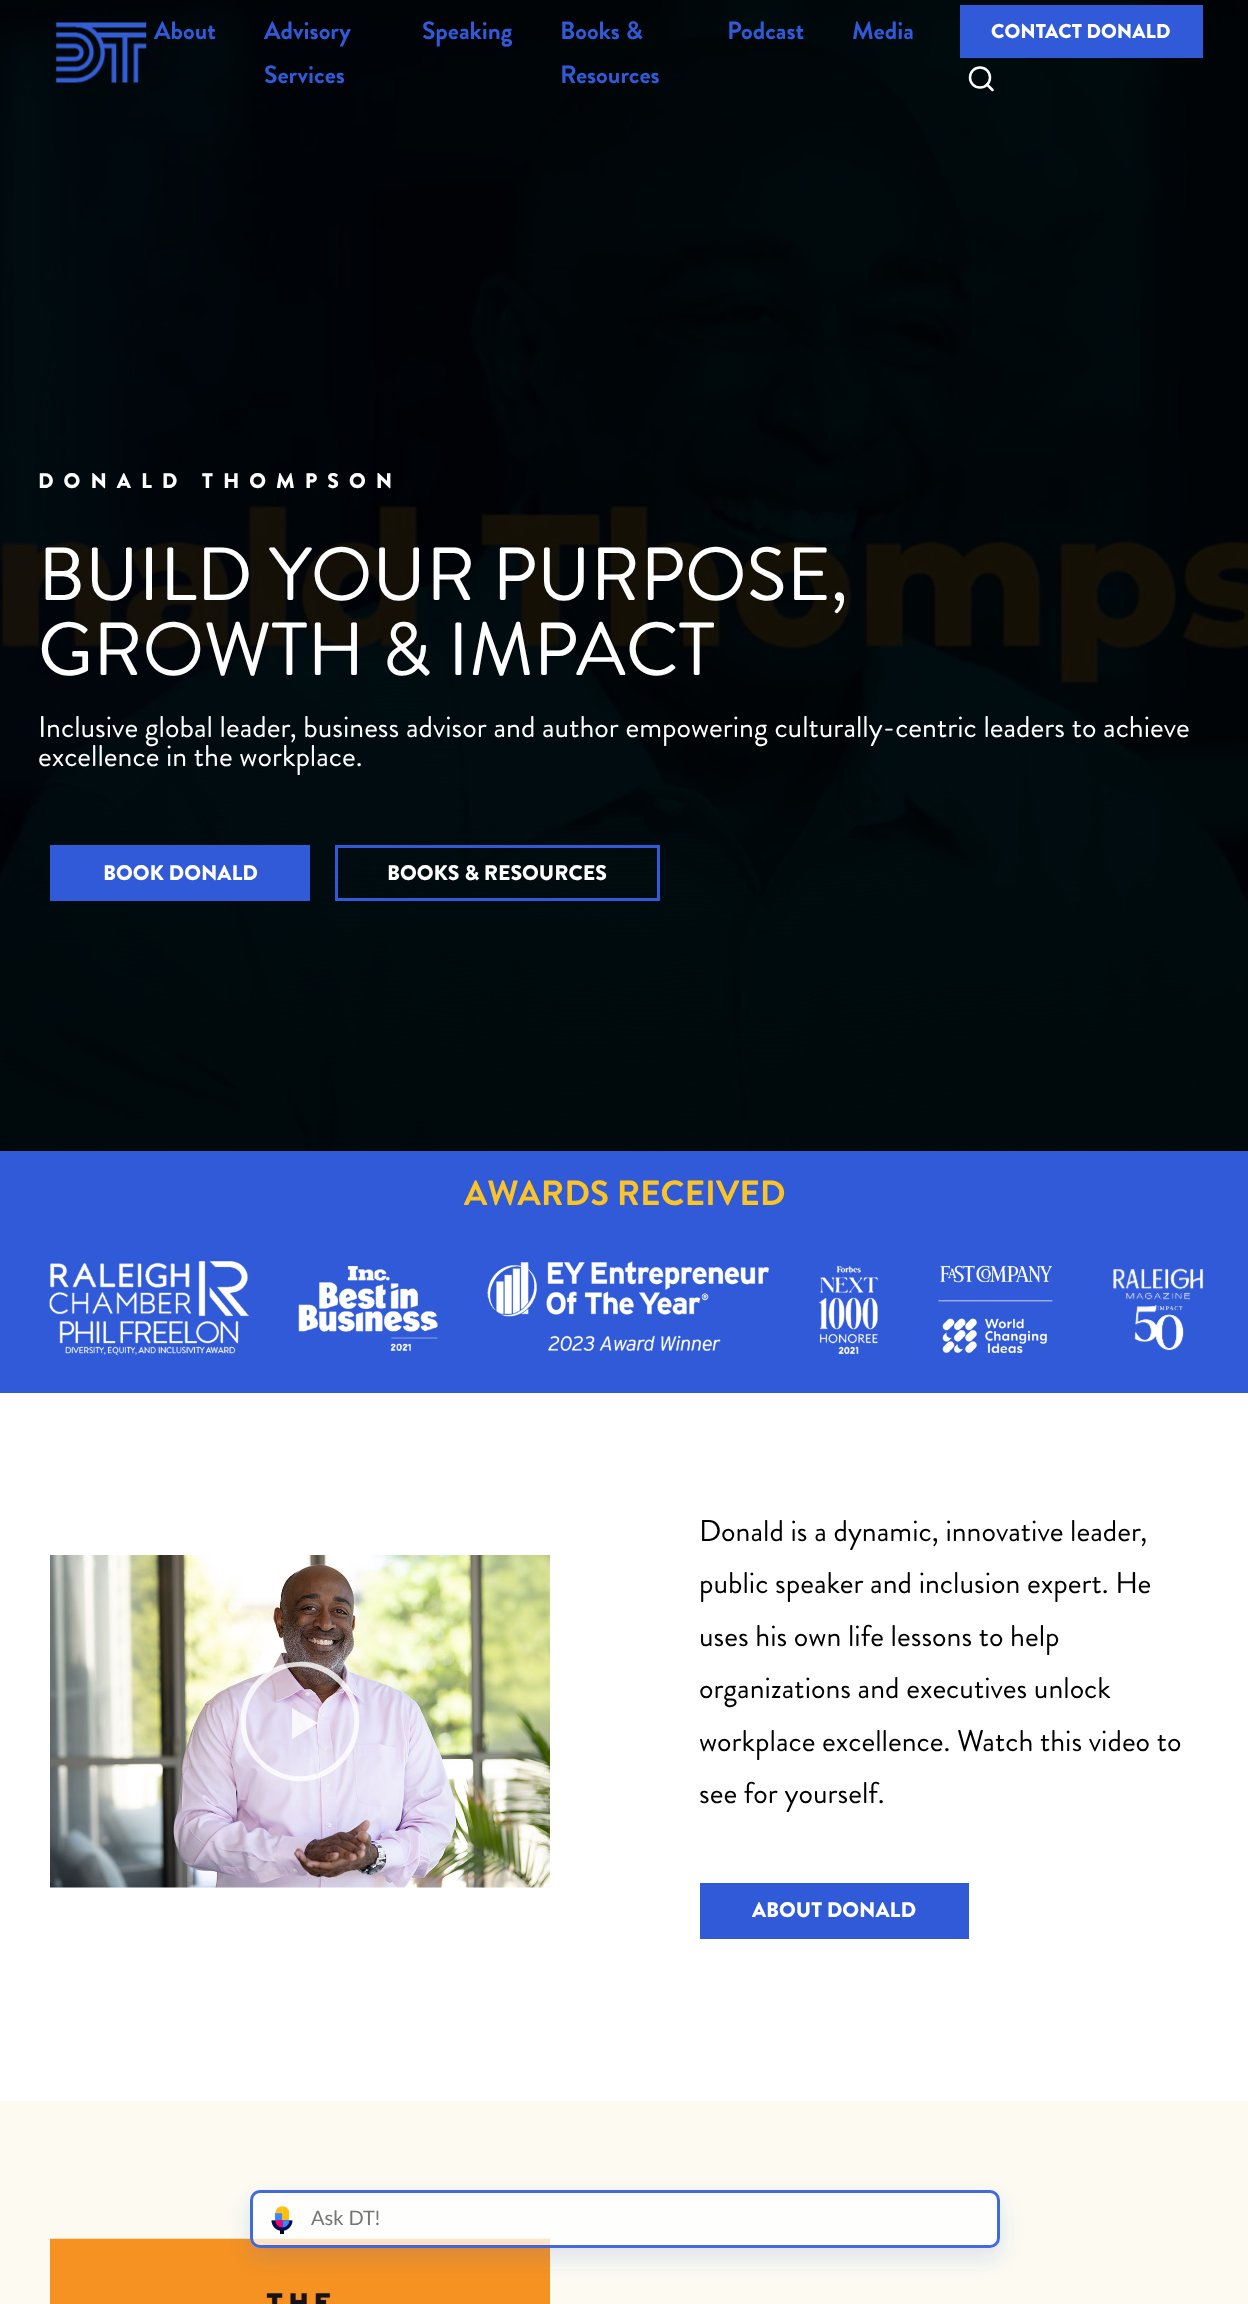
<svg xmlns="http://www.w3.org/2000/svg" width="1248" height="2304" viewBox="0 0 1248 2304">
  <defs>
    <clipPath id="clip1"><path d="M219 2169H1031V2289H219ZM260 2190H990C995.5 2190 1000 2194.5 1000 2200V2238C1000 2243.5 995.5 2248 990 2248H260C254.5 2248 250 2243.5 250 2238V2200C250 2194.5 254.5 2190 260 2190Z" clip-rule="evenodd"/></clipPath>
    <filter id="blur1" x="-50%" y="-200%" width="200%" height="500%"><feGaussianBlur stdDeviation="10"/></filter>
  </defs>
  <rect width="100%" height="100%" fill="#ffffff"/>
  <image x="0" y="0" width="1248" height="1151" href="img2.png"/>
  <image x="56" y="22" width="91" height="61" href="img1.png"/>
  <text x="154" y="39" font-family="Brandon Grotesque" font-size="25" font-weight="bold" fill="#305ad7">About</text>
  <text x="264" y="39" font-family="Brandon Grotesque" font-size="25" font-weight="bold" fill="#305ad7">Advisory</text>
  <text x="264" y="83" font-family="Brandon Grotesque" font-size="25" font-weight="bold" fill="#305ad7">Services</text>
  <text x="422" y="39" font-family="Brandon Grotesque" font-size="25" font-weight="bold" fill="#305ad7">Speaking</text>
  <text x="560" y="39" font-family="Brandon Grotesque" font-size="25" font-weight="bold" fill="#305ad7">Books &amp;</text>
  <text x="560" y="83" font-family="Brandon Grotesque" font-size="25" font-weight="bold" fill="#305ad7">Resources</text>
  <text x="727" y="39" font-family="Brandon Grotesque" font-size="25" font-weight="bold" fill="#305ad7">Podcast</text>
  <text x="852" y="39" font-family="Brandon Grotesque" font-size="25" font-weight="bold" fill="#305ad7">Media</text>
  <rect x="960" y="5" width="243" height="53" fill="#305ad7"/>
  <text x="991" y="38" font-family="Brandon Grotesque" font-size="20" font-weight="900" fill="#ffffff">CONTACT DONALD</text>
  <circle cx="980" cy="77.5" r="10" fill="none" stroke="#ffffff" stroke-width="2.5"/>
  <path d="M992.5 90L987 84.5" fill="none" stroke="#ffffff" stroke-width="2.5" stroke-linecap="round" stroke-linejoin="round"/>
  <text x="38" y="488" font-family="Brandon Grotesque" font-size="21.25" font-weight="900" letter-spacing="10" fill="#ffffff">DONALD THOMPSON</text>
  <text x="38" y="600" font-family="Brandon Grotesque" font-size="75" fill="#ffffff">BUILD YOUR PURPOSE,</text>
  <text x="38" y="675" font-family="Brandon Grotesque" font-size="75" fill="#ffffff">GROWTH &amp; IMPACT</text>
  <text x="38" y="737" font-family="Brandon Grotesque" font-size="30" fill="#ffffff">Inclusive global leader, business advisor and author empowering culturally-centric leaders to achieve</text>
  <text x="38" y="766" font-family="Brandon Grotesque" font-size="30" fill="#ffffff">excellence in the workplace.</text>
  <rect x="50" y="845" width="260" height="56" fill="#305ad7"/>
  <text x="103" y="880" font-family="Brandon Grotesque" font-size="21.25" font-weight="900" fill="#ffffff">BOOK DONALD</text>
  <rect x="336.5" y="846.5" width="322" height="53" fill="none" stroke="#305ad7" stroke-width="3"/>
  <text x="387" y="880" font-family="Brandon Grotesque" font-size="21.25" font-weight="900" fill="#ffffff">BOOKS &amp; RESOURCES</text>
  <rect x="0" y="1151" width="1248" height="242" fill="#305ad7"/>
  <text x="464" y="1205" font-family="Brandon Grotesque" font-size="35" font-weight="bold" fill="#fac428">AWARDS RECEIVED</text>
  <image x="49" y="1261" width="200" height="94" href="img3.png"/>
  <image x="298" y="1266" width="140" height="85" href="img4.png"/>
  <image x="487" y="1261" width="282" height="90" href="img5.png"/>
  <image x="818" y="1266" width="60" height="88" href="img6.png"/>
  <image x="938" y="1265" width="115" height="88" href="img7.png"/>
  <image x="1113" y="1268" width="91" height="83" href="img8.png"/>
  <image x="50" y="1555" width="500" height="333" href="img9.png"/>
  <path d="M342 1679C332 1669 320 1663 306 1662C268 1659 237 1689 241 1727C242 1741 248 1754 258 1763C298 1804 364 1771 359 1715C358 1701 352 1689 342 1679M338 1683C347 1692 353 1703 354 1716C358 1766 298 1797 262 1760C253 1751 247 1739 246 1727C245 1710 250 1695 262 1683C284 1661 316 1661 338 1683M292 1708V1739L318 1723Z" fill="#ffffff" fill-opacity="0.8"/>
  <text x="699" y="1541" font-family="Brandon Grotesque" font-size="30" fill="#000000">Donald is a dynamic, innovative leader,</text>
  <text x="699" y="1593" font-family="Brandon Grotesque" font-size="30" fill="#000000">public speaker and inclusion expert. He</text>
  <text x="699" y="1646" font-family="Brandon Grotesque" font-size="30" fill="#000000">uses his own life lessons to help</text>
  <text x="699" y="1698" font-family="Brandon Grotesque" font-size="30" fill="#000000">organizations and executives unlock</text>
  <text x="699" y="1751" font-family="Brandon Grotesque" font-size="30" fill="#000000">workplace excellence. Watch this video to</text>
  <text x="699" y="1803" font-family="Brandon Grotesque" font-size="30" fill="#000000">see for yourself.</text>
  <rect x="700" y="1883" width="269" height="56" fill="#305ad7"/>
  <text x="752" y="1917" font-family="Brandon Grotesque" font-size="21.25" font-weight="900" fill="#ffffff">ABOUT DONALD</text>
  <rect x="0" y="2101" width="1248" height="203" fill="#fcfaf1"/>
  <image x="50" y="2238" width="500" height="66" href="img10.png"/>
  <g clip-path="url(#clip1)">
    <rect x="250" y="2200" width="750" height="58" rx="10" fill="#2f5ad7" fill-opacity="0.15" filter="url(#blur1)"/>
  </g>
  <rect x="250" y="2190" width="750" height="58" rx="10" fill="#ffffff" fill-opacity="0.75"/>
  <rect x="251.5" y="2191.5" width="747" height="55" rx="8.5" fill="none" stroke="#2f5ad7" stroke-opacity="0.9" stroke-width="3"/>
  <image x="271" y="2206" width="22" height="28" href="img11.png"/>
  <text x="311" y="2225" font-family="Lato" font-size="20" fill="#757575">Ask DT!</text>
</svg>
